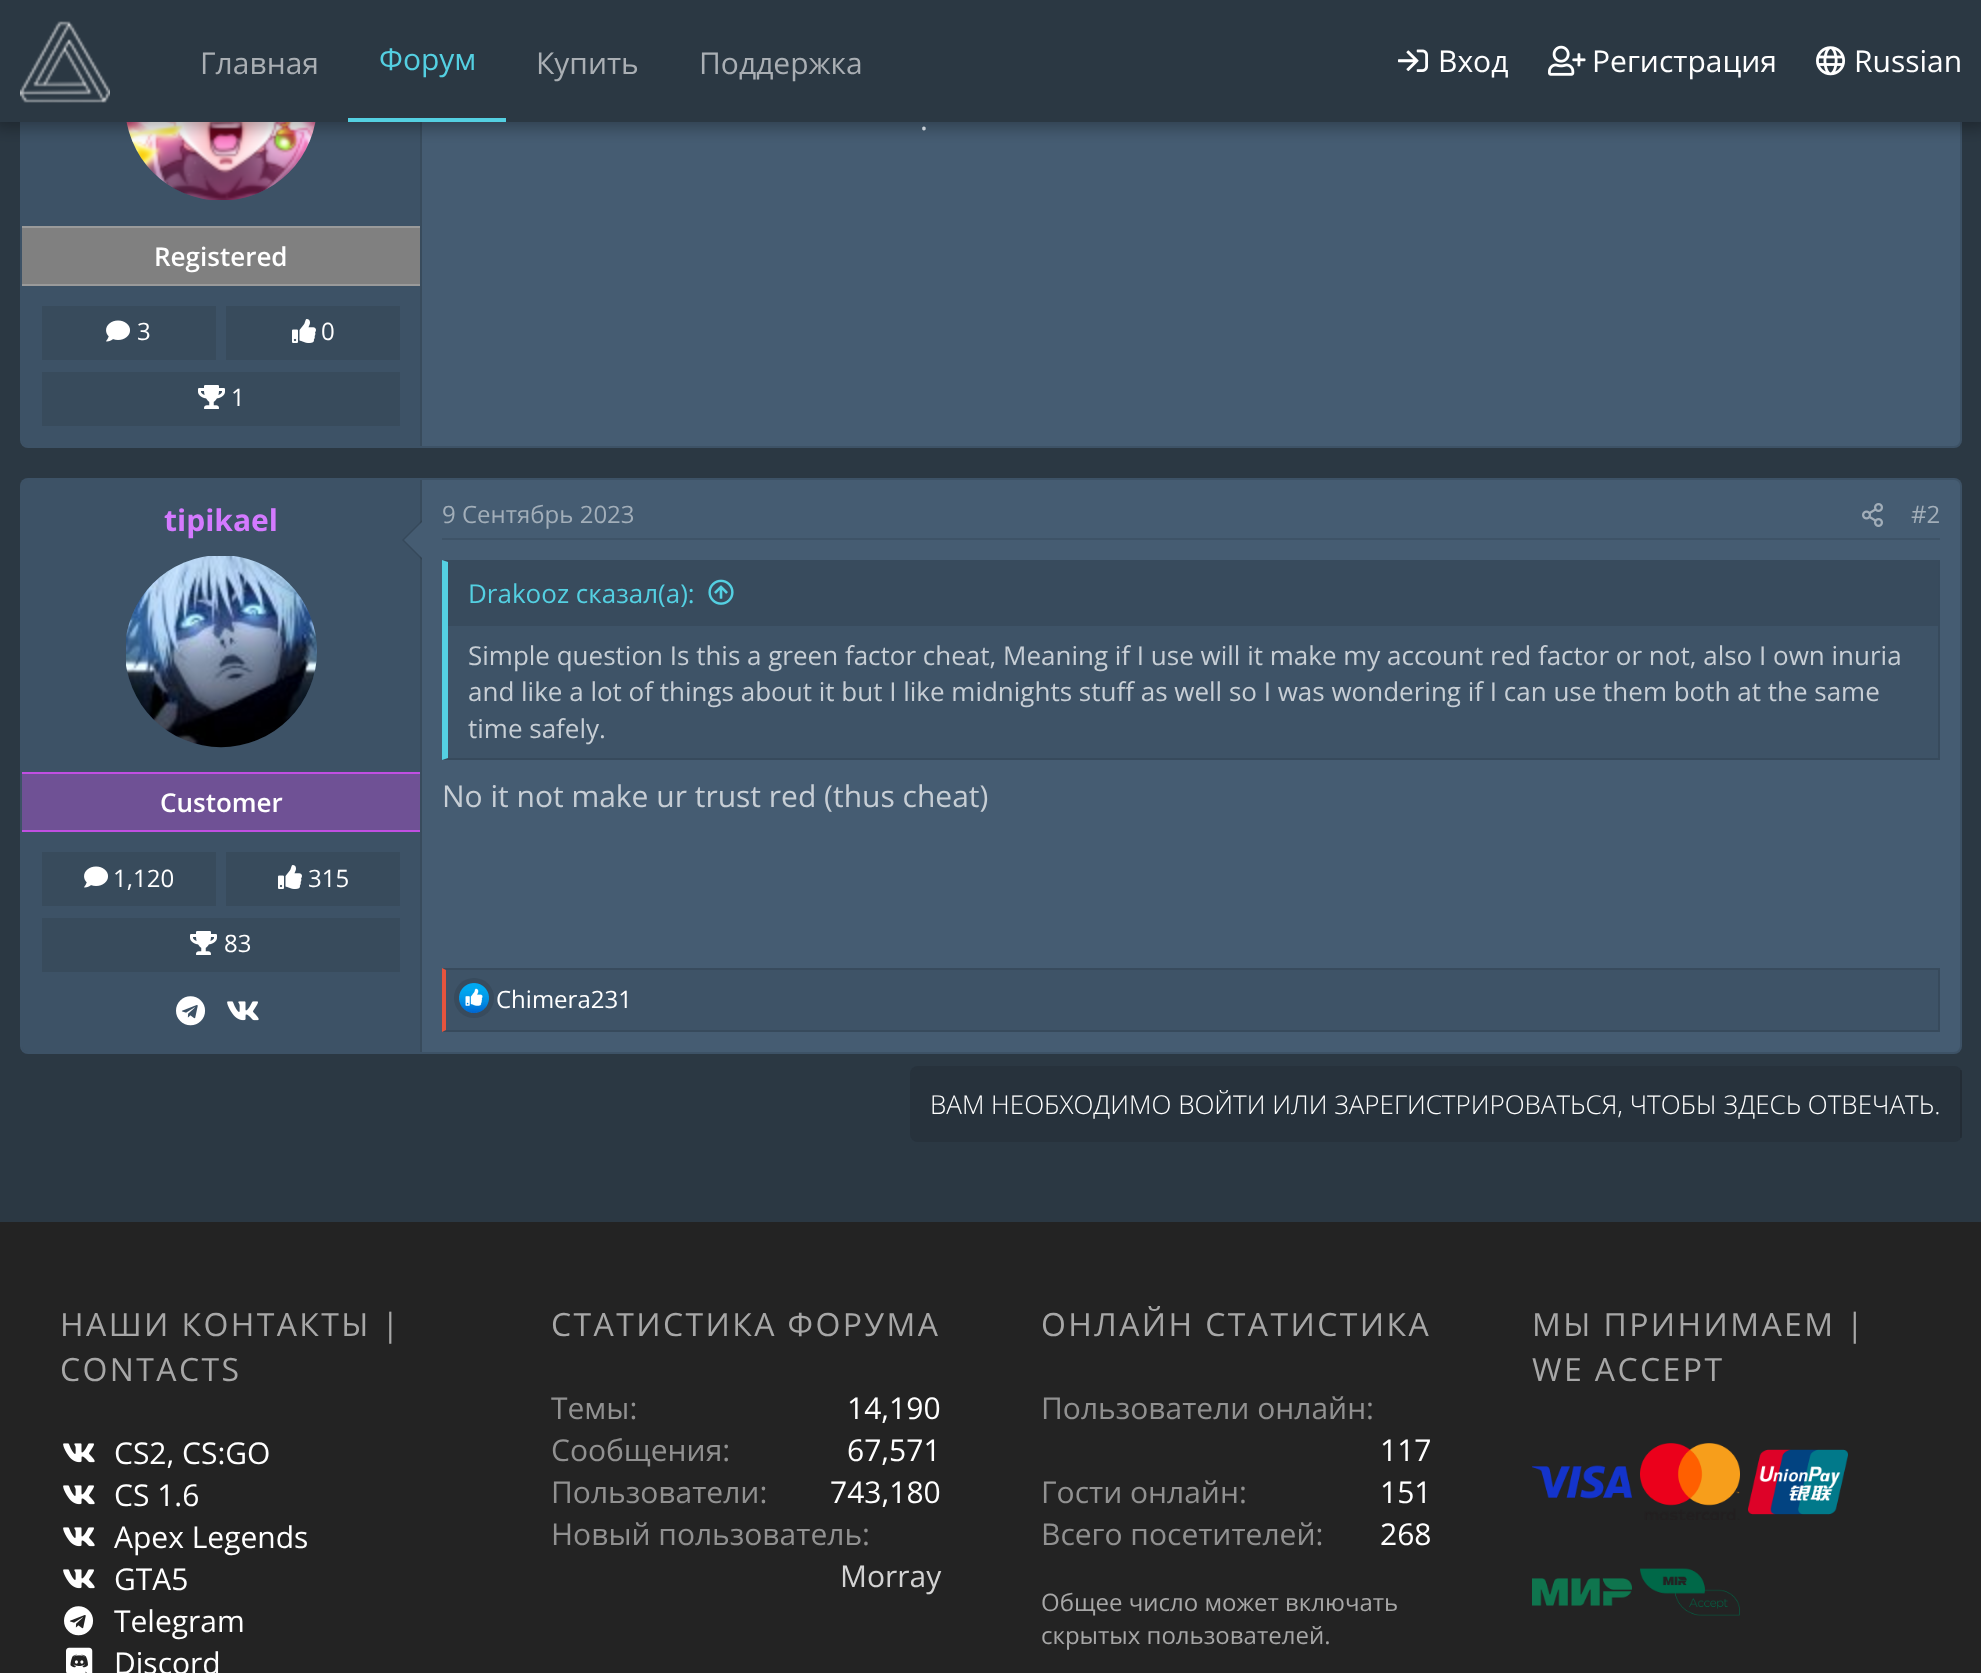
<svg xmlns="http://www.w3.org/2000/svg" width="1981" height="1673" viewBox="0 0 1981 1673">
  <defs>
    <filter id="blur1" x="-50%" y="-200%" width="200%" height="500%"><feGaussianBlur stdDeviation="8"/></filter>
  </defs>
  <rect width="100%" height="100%" fill="#2b3843"/>
  <rect x="20" y="-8" width="1942" height="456" rx="8" fill="#455c72"/>
  <rect x="21" y="-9" width="1940" height="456" rx="7" fill="none" stroke="#000000" stroke-opacity="0.1" stroke-width="2"/>
  <path d="M28-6H422V446H28C24.5 446 22 443.5 22 440V0C22-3.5 24.5-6 28-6Z" fill="#000000" fill-opacity="0.1"/>
  <rect x="420" y="122" width="2" height="324" fill="#384b5c"/>
  <path d="M221 9C173 9 133 44 126 91V118C132 162 167 195 211 200H231C280 195 317 154 317 105C317 52 274 9 221 9Z" fill="#455c72"/>
  <image x="126" y="122" width="190" height="78" href="img5.png"/>
  <rect x="-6" y="-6" width="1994" height="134" fill="#000000" fill-opacity="0.3" filter="url(#blur1)"/>
  <rect x="0" y="0" width="1981" height="122" fill="#2b3843"/>
  <image x="20" y="21" width="90" height="82" href="img1.png"/>
  <text x="200" y="74" font-family="Open Sans" font-size="30" fill="#aaafb4">Главная</text>
  <rect x="348" y="118" width="158" height="4" fill="#54d0e2"/>
  <text x="379" y="70" font-family="Open Sans" font-size="30" fill="#54d0e2">Форум</text>
  <text x="536" y="74" font-family="Open Sans" font-size="30" fill="#aaafb4">Купить</text>
  <text x="699" y="74" font-family="Open Sans" font-size="30" fill="#aaafb4">Поддержка</text>
  <image x="1398" y="49" width="30" height="23" href="img2.png"/>
  <text x="1438" y="72" font-family="Open Sans" font-size="30" fill="#ffffff">Вход</text>
  <image x="1548" y="45" width="38" height="31" href="img3.png"/>
  <text x="1592" y="72" font-family="Open Sans" font-size="30" fill="#ffffff">Регистрация</text>
  <image x="1816" y="46" width="30" height="30" href="img4.png"/>
  <text x="1854" y="72" font-family="Open Sans" font-size="30" fill="#ffffff">Russian</text>
  <text x="920" y="130" font-family="Open Sans" font-size="30" fill="#c7ced5">.</text>
  <rect x="22" y="228" width="398" height="56" fill="#808080"/>
  <rect x="22" y="226" width="398" height="2" fill="#9a9a9a"/>
  <rect x="22" y="284" width="398" height="2" fill="#9a9a9a"/>
  <text x="154" y="266" font-family="Open Sans" font-size="26" font-weight="600" fill="#ffffff">Registered</text>
  <rect x="42" y="306" width="174" height="54" fill="#384b5c"/>
  <image x="106" y="320" width="24" height="22" href="img6.png"/>
  <text x="137" y="340" font-family="Open Sans" font-size="24" fill="#ffffff">3</text>
  <rect x="226" y="306" width="174" height="54" fill="#384b5c"/>
  <image x="292" y="319" width="24" height="24" href="img7.png"/>
  <text x="321" y="340" font-family="Open Sans" font-size="24" fill="#ffffff">0</text>
  <rect x="42" y="372" width="358" height="54" fill="#384b5c"/>
  <image x="198" y="385" width="27" height="24" href="img8.png"/>
  <text x="231" y="406" font-family="Open Sans" font-size="24" fill="#ffffff">1</text>
  <rect x="20" y="478" width="1942" height="576" rx="8" fill="#455c72"/>
  <rect x="21" y="479" width="1940" height="574" rx="7" fill="none" stroke="#000000" stroke-opacity="0.1" stroke-width="2"/>
  <path d="M28 480H422V1052H28C24.5 1052 22 1049.5 22 1046V486C22 482.5 24.5 480 28 480Z" fill="#000000" fill-opacity="0.1"/>
  <rect x="420" y="480" width="2" height="572" fill="#384b5c"/>
  <text x="164" y="531" font-family="Open Sans" font-size="30" font-weight="bold" fill="#d47aff">tipikael</text>
  <path d="M422 520V560L402 540Z" fill="#000000" fill-opacity="0.1"/>
  <path d="M422 522V558L404 540Z" fill="#455c72"/>
  <path d="M126 637C132 595 166 562 208 556H234C281 562 317 603 317 651C317 704 274 747 221 747C173 747 133 711 126 665Z" fill="#455c72"/>
  <image x="126" y="556" width="191" height="192" href="img9.png"/>
  <rect x="22" y="774" width="398" height="56" fill="#6f5195"/>
  <rect x="22" y="772" width="398" height="2" fill="#c04fe2"/>
  <rect x="22" y="830" width="398" height="2" fill="#c04fe2"/>
  <text x="160" y="812" font-family="Open Sans" font-size="26" font-weight="600" fill="#ffffff">Customer</text>
  <rect x="42" y="852" width="174" height="54" fill="#384b5c"/>
  <image x="84" y="866" width="24" height="22" href="img6.png"/>
  <text x="113" y="887" font-family="Open Sans" font-size="24" fill="#ffffff">1,120</text>
  <rect x="226" y="852" width="174" height="54" fill="#384b5c"/>
  <image x="278" y="865" width="24" height="24" href="img7.png"/>
  <text x="308" y="887" font-family="Open Sans" font-size="24" fill="#ffffff">315</text>
  <rect x="42" y="918" width="358" height="54" fill="#384b5c"/>
  <image x="190" y="931" width="27" height="24" href="img8.png"/>
  <text x="224" y="952" font-family="Open Sans" font-size="24" fill="#ffffff">83</text>
  <image x="176" y="996" width="30" height="30" href="img10.png"/>
  <image x="227" y="1001" width="32" height="20" href="img11.png"/>
  <rect x="442" y="538" width="1498" height="2" fill="#3e5367"/>
  <text x="442" y="523" font-family="Open Sans" font-size="24" fill="#a2aeb9">9 Сентябрь 2023</text>
  <image x="1862" y="503" width="21" height="24" href="img12.png"/>
  <text x="1911" y="523" font-family="Open Sans" font-size="24" fill="#a2aeb9">#2</text>
  <rect x="442" y="560" width="1498" height="200" fill="#3e5367"/>
  <path d="M442 560H1940L1938 562H448Z" fill="#384b5d"/>
  <path d="M1940 560V760L1938 758V562Z" fill="#000000" fill-opacity="0.1"/>
  <path d="M1940 760H442L448 758H1938Z" fill="#000000" fill-opacity="0.1"/>
  <path d="M442 760V560L448 562V758Z" fill="#54d0e2"/>
  <rect x="448" y="562" width="1490" height="64" fill="#384b5d"/>
  <text x="468" y="603" font-family="Open Sans" font-size="26" fill="#54d0e2">Drakooz сказал(а):</text>
  <image x="708" y="579" width="26" height="26" href="img13.png"/>
  <text x="468" y="665" font-family="Open Sans" font-size="26" fill="#c7ced5">Simple question Is this a green factor cheat, Meaning if I use will it make my account red factor or not, also I own inuria</text>
  <text x="468" y="701" font-family="Open Sans" font-size="26" fill="#c7ced5">and like a lot of things about it but I like midnights stuff as well so I was wondering if I can use them both at the same</text>
  <text x="468" y="738" font-family="Open Sans" font-size="26" fill="#c7ced5">time safely.</text>
  <text x="442" y="807" font-family="Open Sans" font-size="30" fill="#c7ced5">No it not make ur trust red (thus cheat)</text>
  <rect x="442" y="968" width="1498" height="64" fill="#3e5367"/>
  <path d="M442 968H1940L1938 970H446Z" fill="#384b5d"/>
  <path d="M1940 968V1032L1938 1030V970Z" fill="#000000" fill-opacity="0.1"/>
  <path d="M1940 1032H442L446 1030H1938Z" fill="#000000" fill-opacity="0.1"/>
  <path d="M442 1032V968L446 970V1030Z" fill="#e6543d"/>
  <circle cx="474" cy="998" r="20" fill="#384b5d"/>
  <image x="459" y="983" width="30" height="30" href="img14.png"/>
  <text x="496" y="1008" font-family="Open Sans" font-size="24" fill="#ffffff">Chimera231</text>
  <rect x="910" y="1066" width="1052" height="76" rx="8" fill="#27323c"/>
  <rect x="1960" y="1070" width="2" height="68" fill="#000000" fill-opacity="0.1"/>
  <text x="930" y="1114" font-family="Open Sans" font-size="26" font-weight="300" fill="#ffffff">ВАМ НЕОБХОДИМО ВОЙТИ ИЛИ ЗАРЕГИСТРИРОВАТЬСЯ, ЧТОБЫ ЗДЕСЬ ОТВЕЧАТЬ.</text>
  <rect x="0" y="1222" width="1981" height="451" fill="#232323"/>
  <text x="60" y="1336" font-family="Open Sans" font-size="32" letter-spacing="2.4" fill="#a7a7a7">НАШИ КОНТАКТЫ |</text>
  <text x="60" y="1381" font-family="Open Sans" font-size="32" letter-spacing="2.4" fill="#a7a7a7">CONTACTS</text>
  <image x="63" y="1443" width="32" height="20" href="img15.png"/>
  <text x="114" y="1464" font-family="Open Sans" font-size="30" fill="#ffffff">CS2, CS:GO</text>
  <image x="63" y="1485" width="32" height="20" href="img15.png"/>
  <text x="114" y="1506" font-family="Open Sans" font-size="30" fill="#ffffff">CS 1.6</text>
  <image x="63" y="1527" width="32" height="20" href="img15.png"/>
  <text x="114" y="1548" font-family="Open Sans" font-size="30" fill="#ffffff">Apex Legends</text>
  <image x="63" y="1569" width="32" height="20" href="img15.png"/>
  <text x="114" y="1590" font-family="Open Sans" font-size="30" fill="#ffffff">GTA5</text>
  <image x="64" y="1606" width="30" height="30" href="img16.png"/>
  <text x="114" y="1632" font-family="Open Sans" font-size="30" fill="#ffffff">Telegram</text>
  <image x="66" y="1647" width="27" height="26" href="img17.png"/>
  <text x="114" y="1674" font-family="Open Sans" font-size="30" fill="#ffffff">Discord</text>
  <text x="551" y="1336" font-family="Open Sans" font-size="32" letter-spacing="2.4" fill="#a7a7a7">СТАТИСТИКА ФОРУМА</text>
  <text x="551" y="1419" font-family="Open Sans" font-size="30" fill="#919191">Темы:</text>
  <text x="847" y="1419" font-family="Open Sans" font-size="30" fill="#ffffff">14,190</text>
  <text x="551" y="1461" font-family="Open Sans" font-size="30" fill="#919191">Сообщения:</text>
  <text x="847" y="1461" font-family="Open Sans" font-size="30" fill="#ffffff">67,571</text>
  <text x="551" y="1503" font-family="Open Sans" font-size="30" fill="#919191">Пользователи:</text>
  <text x="830" y="1503" font-family="Open Sans" font-size="30" fill="#ffffff">743,180</text>
  <text x="551" y="1545" font-family="Open Sans" font-size="30" fill="#919191">Новый пользователь:</text>
  <text x="840" y="1587" font-family="Open Sans" font-size="30" fill="#d3d3d3">Morray</text>
  <text x="1041" y="1336" font-family="Open Sans" font-size="32" letter-spacing="2.4" fill="#a7a7a7">ОНЛАЙН СТАТИСТИКА</text>
  <text x="1041" y="1419" font-family="Open Sans" font-size="30" fill="#919191">Пользователи онлайн:</text>
  <text x="1380" y="1461" font-family="Open Sans" font-size="30" fill="#ffffff">117</text>
  <text x="1041" y="1503" font-family="Open Sans" font-size="30" fill="#919191">Гости онлайн:</text>
  <text x="1380" y="1503" font-family="Open Sans" font-size="30" fill="#ffffff">151</text>
  <text x="1041" y="1545" font-family="Open Sans" font-size="30" fill="#919191">Всего посетителей:</text>
  <text x="1380" y="1545" font-family="Open Sans" font-size="30" fill="#ffffff">268</text>
  <text x="1041" y="1611" font-family="Open Sans" font-size="24" fill="#a7a7a7">Общее число может включать</text>
  <text x="1041" y="1644" font-family="Open Sans" font-size="24" fill="#a7a7a7">скрытых пользователей.</text>
  <text x="1532" y="1336" font-family="Open Sans" font-size="32" letter-spacing="2.4" fill="#a7a7a7">МЫ ПРИНИМАЕМ |</text>
  <text x="1532" y="1381" font-family="Open Sans" font-size="32" letter-spacing="2.4" fill="#a7a7a7">WE ACCEPT</text>
  <image x="1532" y="1465" width="100" height="34" href="img18.png"/>
  <image x="1640" y="1443" width="100" height="77" href="img19.png"/>
  <image x="1748" y="1449" width="100" height="66" href="img20.png"/>
  <image x="1532" y="1578" width="100" height="28" href="img21.png"/>
  <image x="1640" y="1568" width="100" height="48" href="img22.png"/>
</svg>
